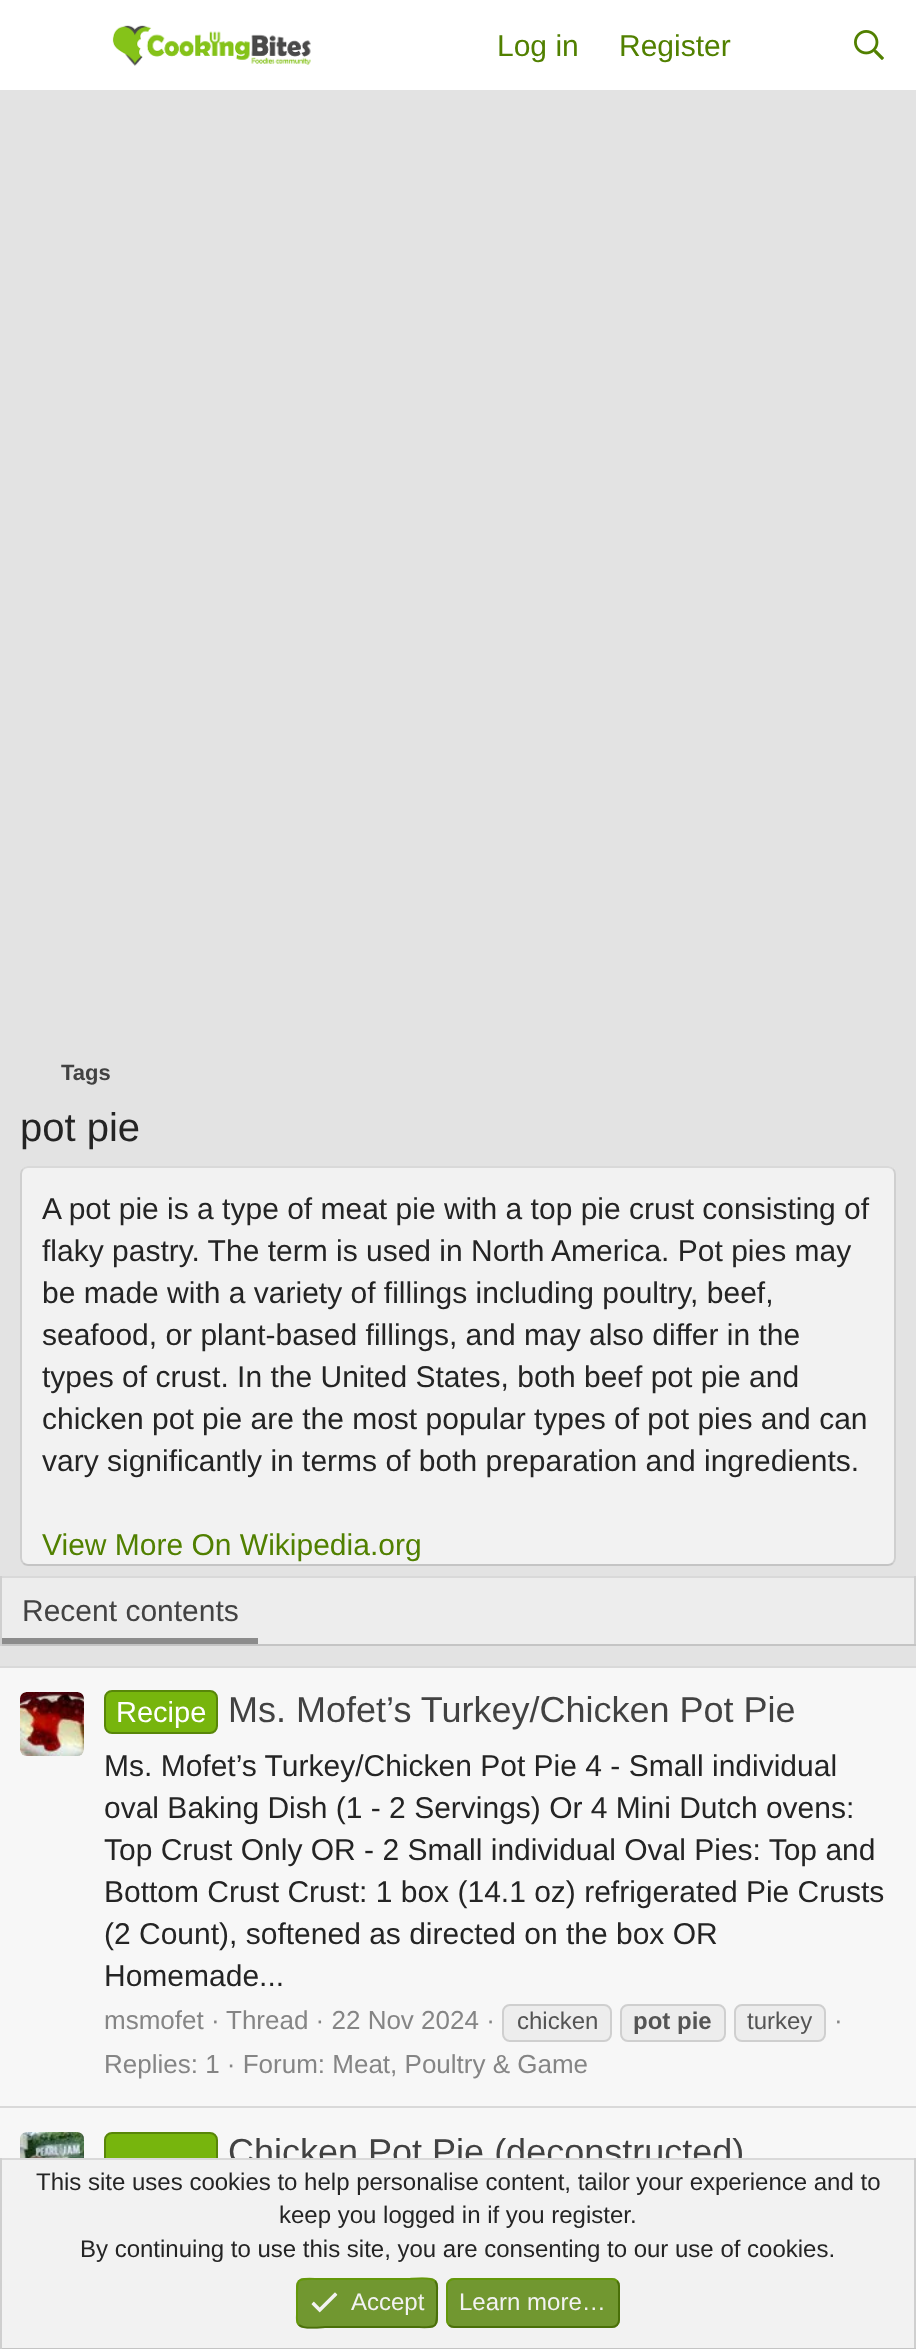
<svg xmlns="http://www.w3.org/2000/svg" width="916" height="2349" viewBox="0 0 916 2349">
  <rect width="100%" height="100%" fill="#e3e3e3"/>
  <rect x="0" y="0" width="916" height="90" fill="#ffffff"/>
  <image x="112" y="25" width="199" height="41" href="img1.png"/>
  <text x="497" y="56" font-family="Liberation Sans" font-size="30" fill="#518000">Log in</text>
  <text x="619" y="56" font-family="Liberation Sans" font-size="30" fill="#518000">Register</text>
  <image x="854" y="30" width="30" height="30" href="img2.png"/>
  <text x="61" y="1080" font-family="Liberation Sans" font-size="22" font-weight="bold" fill="#424242">Tags</text>
  <text x="20" y="1141" font-family="Liberation Sans" font-size="40" fill="#242424">pot pie</text>
  <rect x="20" y="1166" width="876" height="400" rx="8" fill="#f2f2f2"/>
  <path d="M23 1169C24.5 1167.5 26 1167 28 1167H888C890 1167 891.5 1167.5 893 1169" fill="none" stroke="#d9d9d9" stroke-width="2"/>
  <path d="M893 1169C894.5 1170.5 895 1172 895 1174V1558C895 1560 894.5 1561.5 893 1563" fill="none" stroke="#cfcfcf" stroke-width="2"/>
  <path d="M893 1563C891.5 1564.5 890 1565 888 1565H28C26 1565 24.5 1564.5 23 1563" fill="none" stroke="#c4c4c4" stroke-width="2"/>
  <path d="M23 1563C21.5 1561.5 21 1560 21 1558V1174C21 1172 21.5 1170.5 23 1169" fill="none" stroke="#cfcfcf" stroke-width="2"/>
  <text x="42" y="1219" font-family="Liberation Sans" font-size="30" fill="#242424">A pot pie is a type of meat pie with a top pie crust consisting of</text>
  <text x="42" y="1261" font-family="Liberation Sans" font-size="30" fill="#242424">flaky pastry. The term is used in North America. Pot pies may</text>
  <text x="42" y="1303" font-family="Liberation Sans" font-size="30" fill="#242424">be made with a variety of fillings including poultry, beef,</text>
  <text x="42" y="1345" font-family="Liberation Sans" font-size="30" fill="#242424">seafood, or plant-based fillings, and may also differ in the</text>
  <text x="42" y="1387" font-family="Liberation Sans" font-size="30" fill="#242424">types of crust. In the United States, both beef pot pie and</text>
  <text x="42" y="1429" font-family="Liberation Sans" font-size="30" fill="#242424">chicken pot pie are the most popular types of pot pies and can</text>
  <text x="42" y="1471" font-family="Liberation Sans" font-size="30" fill="#242424">vary significantly in terms of both preparation and ingredients.</text>
  <text x="42" y="1555" font-family="Liberation Sans" font-size="30" fill="#518000">View More On Wikipedia.org</text>
  <rect x="2" y="1578" width="912" height="66" fill="#ededed"/>
  <rect x="0" y="1576" width="916" height="2" fill="#d9d9d9"/>
  <rect x="914" y="1576" width="2" height="70" fill="#cfcfcf"/>
  <rect x="0" y="1644" width="916" height="2" fill="#c4c4c4"/>
  <rect x="0" y="1576" width="2" height="70" fill="#cfcfcf"/>
  <rect x="2" y="1638" width="256" height="6" fill="#8c8c8c"/>
  <text x="22" y="1621" font-family="Liberation Sans" font-size="30" fill="#424242">Recent contents</text>
  <rect x="0" y="1668" width="916" height="490" fill="#f7f7f7"/>
  <rect x="0" y="1666" width="916" height="2" fill="#d9d9d9"/>
  <image x="20" y="1692" width="64" height="64" href="img3.png"/>
  <rect x="105" y="1691" width="112" height="42" rx="7" fill="#77b50d" stroke="#588609" stroke-width="2"/>
  <text x="116" y="1722" font-family="Liberation Sans" font-size="29" fill="#ffffff">Recipe</text>
  <text x="228" y="1722" font-family="Liberation Sans" font-size="36" fill="#424242">Ms. Mofet’s Turkey/Chicken Pot Pie</text>
  <text x="104" y="1776" font-family="Liberation Sans" font-size="30" fill="#242424">Ms. Mofet’s Turkey/Chicken Pot Pie 4 - Small individual</text>
  <text x="104" y="1818" font-family="Liberation Sans" font-size="30" fill="#242424">oval Baking Dish (1 - 2 Servings) Or 4 Mini Dutch ovens:</text>
  <text x="104" y="1860" font-family="Liberation Sans" font-size="30" fill="#242424">Top Crust Only OR - 2 Small individual Oval Pies: Top and</text>
  <text x="104" y="1902" font-family="Liberation Sans" font-size="30" fill="#242424">Bottom Crust Crust: 1 box (14.1 oz) refrigerated Pie Crusts</text>
  <text x="104" y="1944" font-family="Liberation Sans" font-size="30" fill="#242424">(2 Count), softened as directed on the box OR</text>
  <text x="104" y="1986" font-family="Liberation Sans" font-size="30" fill="#242424">Homemade...</text>
  <text x="104" y="2029" font-family="Liberation Sans" font-size="26" fill="#858585">msmofet ·</text>
  <text x="226" y="2029" font-family="Liberation Sans" font-size="26" fill="#858585">Thread · 22 Nov 2024 ·</text>
  <rect x="503" y="2005" width="108" height="36" rx="7" fill="#ededed" stroke="#cfcfcf" stroke-width="2"/>
  <text x="517" y="2029" font-family="Liberation Sans" font-size="24" fill="#545454">chicken</text>
  <rect x="621" y="2005" width="104" height="36" rx="7" fill="#ededed" stroke="#cfcfcf" stroke-width="2"/>
  <text x="633" y="2029" font-family="Liberation Sans" font-size="24" font-weight="bold" fill="#545454">pot pie</text>
  <rect x="735" y="2005" width="90" height="36" rx="7" fill="#ededed" stroke="#cfcfcf" stroke-width="2"/>
  <text x="747" y="2029" font-family="Liberation Sans" font-size="24" fill="#545454">turkey</text>
  <text x="834" y="2029" font-family="Liberation Sans" font-size="26" fill="#858585">·</text>
  <text x="104" y="2073" font-family="Liberation Sans" font-size="26" fill="#858585">Replies: 1 · Forum: Meat, Poultry &amp; Game</text>
  <rect x="0" y="2106" width="916" height="2" fill="#d9d9d9"/>
  <image x="20" y="2132" width="64" height="26" href="img4.png"/>
  <rect x="105" y="2133" width="112" height="42" rx="7" fill="#77b50d" stroke="#588609" stroke-width="2"/>
  <text x="228" y="2164" font-family="Liberation Sans" font-size="36" fill="#424242">Chicken Pot Pie (deconstructed)</text>
  <rect x="2" y="2160" width="912" height="188" fill="#f2f2f2"/>
  <rect x="0" y="2158" width="916" height="2" fill="#d9d9d9"/>
  <rect x="914" y="2158" width="2" height="191" fill="#cfcfcf"/>
  <rect x="0" y="2348" width="916" height="1" fill="#c4c4c4"/>
  <rect x="0" y="2158" width="2" height="191" fill="#cfcfcf"/>
  <text x="36" y="2190" font-family="Liberation Sans" font-size="24" fill="#242424">This site uses cookies to help personalise content, tailor your experience and to</text>
  <text x="279" y="2223" font-family="Liberation Sans" font-size="24" fill="#242424">keep you logged in if you register.</text>
  <text x="80" y="2257" font-family="Liberation Sans" font-size="24" fill="#242424">By continuing to use this site, you are consenting to our use of cookies.</text>
  <rect x="296" y="2278" width="142" height="50" rx="8" fill="#719730"/>
  <path d="M435 2281C438 2284 437 2288 437 2291.5V2303C437 2331 439.5 2327 409 2327H325C323 2327 304 2330 299 2325" fill="none" stroke="#416600" stroke-opacity="0.8" stroke-width="2"/>
  <path d="M299 2325C296 2322 297 2318 297 2314.5V2303C297 2275 294.5 2279 325 2279H409C411 2279 430 2276 435 2281" fill="none" stroke="#619900" stroke-opacity="0.8" stroke-width="2"/>
  <image x="311" y="2292" width="27" height="21" href="img5.png"/>
  <text x="351" y="2310" font-family="Liberation Sans" font-size="24" fill="#f2f2f2">Accept</text>
  <rect x="446" y="2278" width="174" height="50" rx="8" fill="#719730"/>
  <path d="M617 2281C618.5 2282.5 619 2284 619 2286V2320C619 2322 618.5 2323.5 617 2325C615.5 2326.5 614 2327 612 2327H454C452 2327 450.5 2326.5 449 2325" fill="none" stroke="#416600" stroke-opacity="0.8" stroke-width="2"/>
  <path d="M449 2325C447.5 2323.5 447 2322 447 2320V2286C447 2284 447.5 2282.5 449 2281C450.5 2279.5 452 2279 454 2279H612C614 2279 615.5 2279.5 617 2281" fill="none" stroke="#619900" stroke-opacity="0.8" stroke-width="2"/>
  <text x="459" y="2310" font-family="Liberation Sans" font-size="24" fill="#f2f2f2">Learn more…</text>
</svg>
